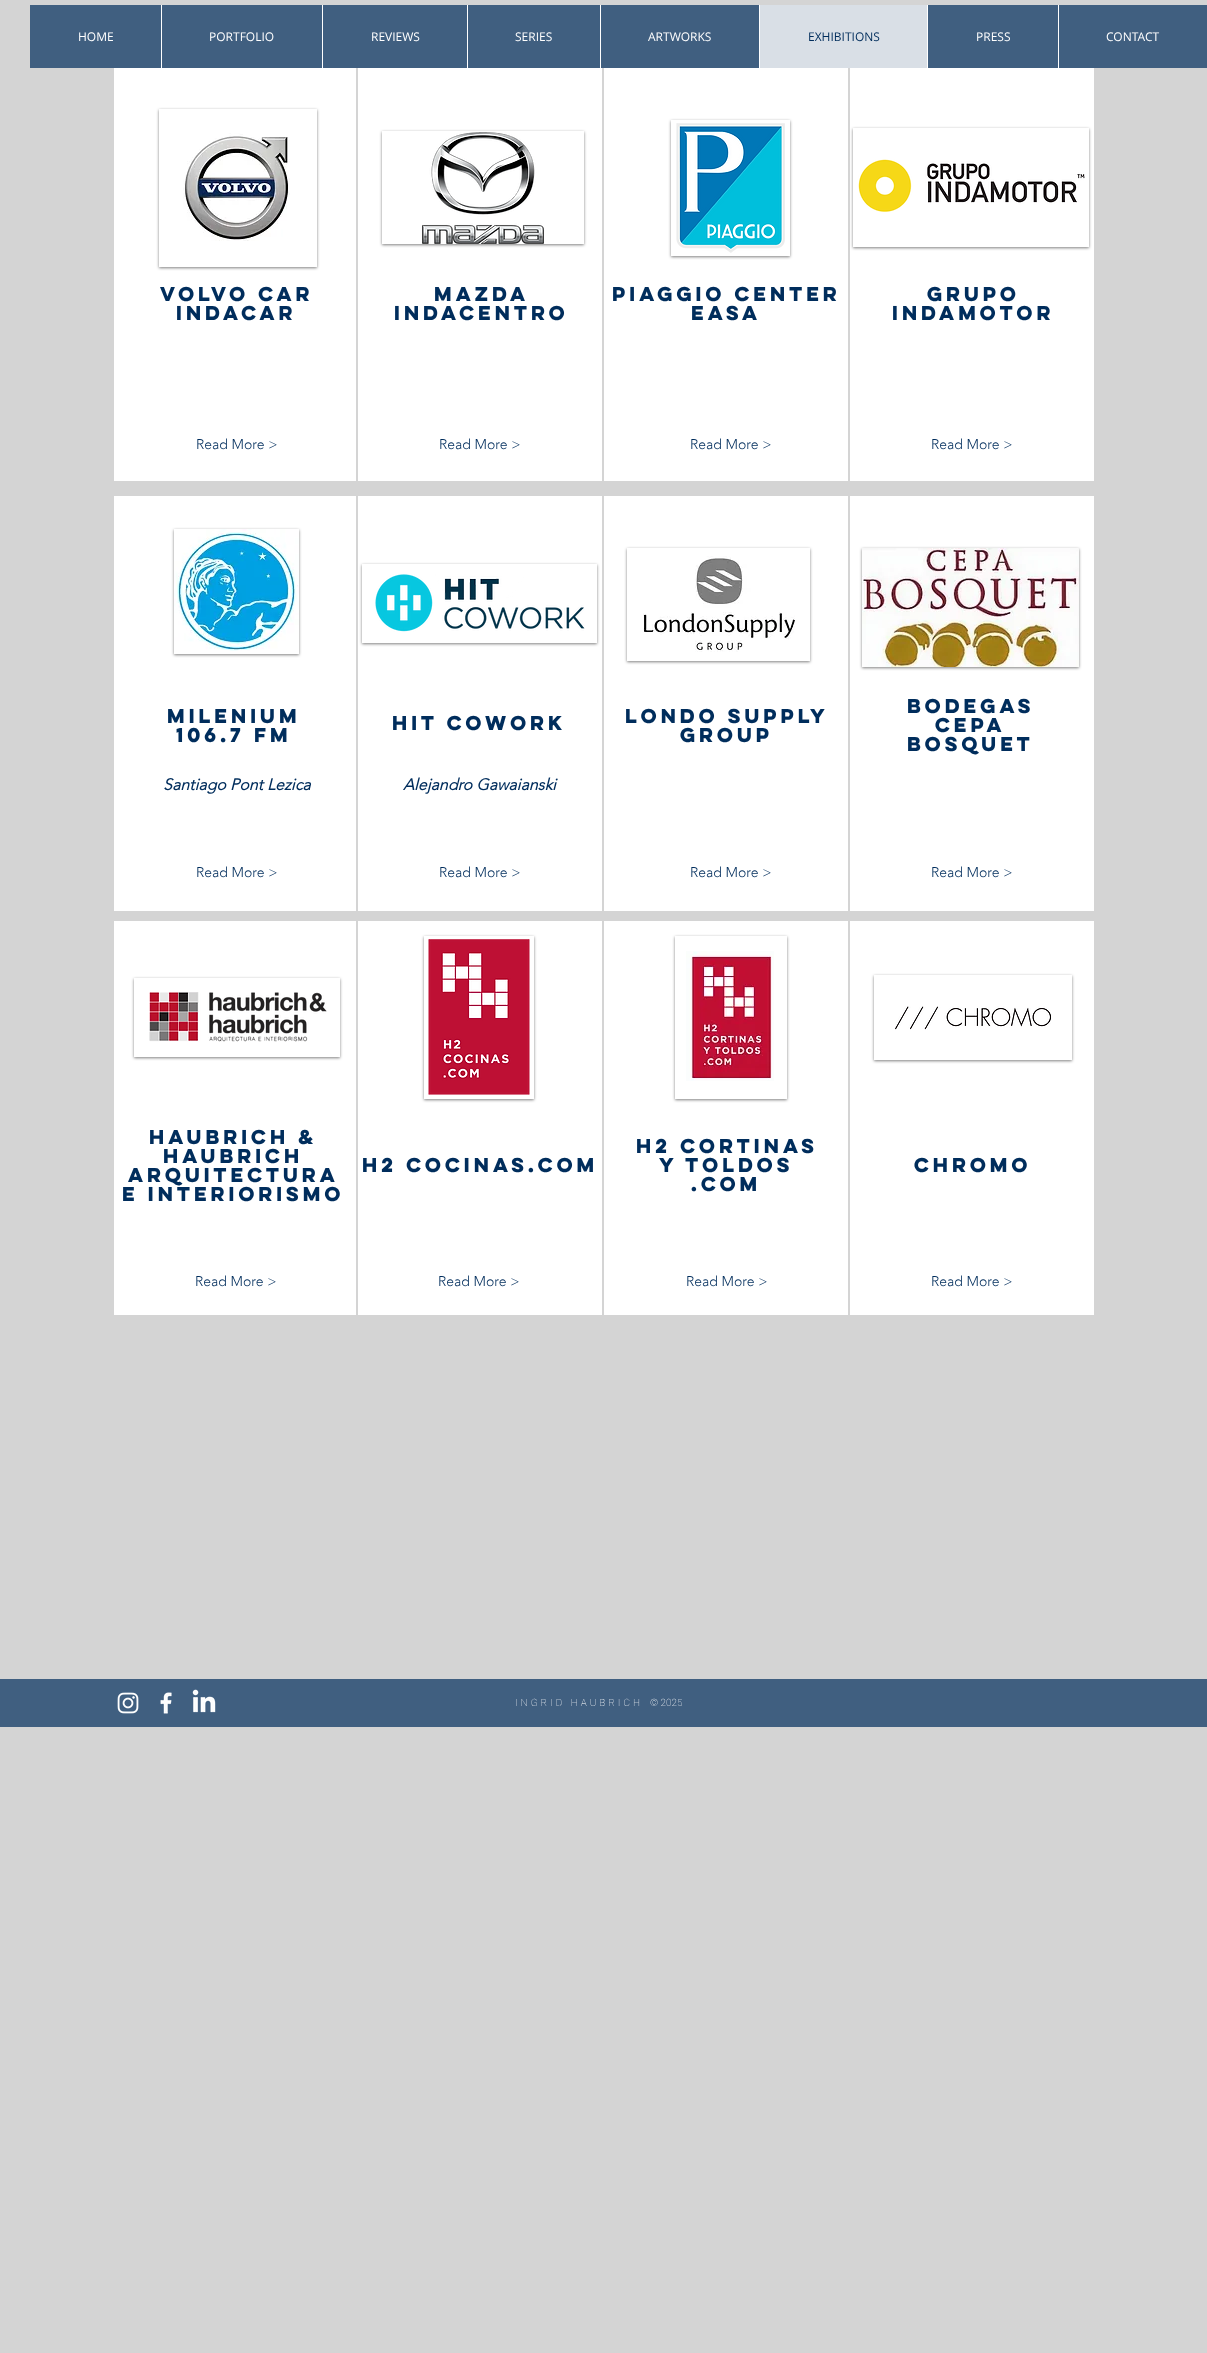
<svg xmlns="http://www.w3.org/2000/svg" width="1207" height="2353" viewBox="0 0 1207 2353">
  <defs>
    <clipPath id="clip1"><path d="M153 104H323V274H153ZM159 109H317V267H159Z" clip-rule="evenodd"/></clipPath>
    <filter id="blur1" x="-50%" y="-200%" width="200%" height="500%"><feGaussianBlur stdDeviation="1.5"/></filter>
    <clipPath id="clip2"><path d="M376 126H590V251H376ZM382 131H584V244H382Z" clip-rule="evenodd"/></clipPath>
    <clipPath id="clip3"><path d="M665 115H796V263H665ZM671 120H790V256H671Z" clip-rule="evenodd"/></clipPath>
    <clipPath id="clip4"><path d="M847 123H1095V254H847ZM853 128H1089V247H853Z" clip-rule="evenodd"/></clipPath>
    <clipPath id="clip5"><path d="M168 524H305V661H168ZM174 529H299V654H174Z" clip-rule="evenodd"/></clipPath>
    <clipPath id="clip6"><path d="M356 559H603V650H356ZM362 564H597V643H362Z" clip-rule="evenodd"/></clipPath>
    <clipPath id="clip7"><path d="M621 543H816V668H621ZM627 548H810V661H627Z" clip-rule="evenodd"/></clipPath>
    <clipPath id="clip8"><path d="M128 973H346V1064H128ZM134 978H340V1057H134Z" clip-rule="evenodd"/></clipPath>
    <clipPath id="clip9"><path d="M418 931H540V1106H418ZM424 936H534V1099H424Z" clip-rule="evenodd"/></clipPath>
    <clipPath id="clip10"><path d="M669 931H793V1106H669ZM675 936H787V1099H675Z" clip-rule="evenodd"/></clipPath>
    <clipPath id="clip11"><path d="M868 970H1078V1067H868ZM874 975H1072V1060H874Z" clip-rule="evenodd"/></clipPath>
  </defs>
  <rect width="100%" height="100%" fill="#d4d4d4"/>
  <rect x="30" y="5" width="1177" height="63" fill="#405f80"/>
  <text x="78" y="41" font-family="Open Sans" font-size="12" fill="#ffffff">HOME</text>
  <rect x="161" y="5" width="1" height="63" fill="#ffffff"/>
  <text x="209" y="41" font-family="Open Sans" font-size="12" fill="#ffffff">PORTFOLIO</text>
  <rect x="322" y="5" width="1" height="63" fill="#ffffff"/>
  <text x="371" y="41" font-family="Open Sans" font-size="12" fill="#ffffff">REVIEWS</text>
  <rect x="467" y="5" width="1" height="63" fill="#ffffff"/>
  <text x="515" y="41" font-family="Open Sans" font-size="12" fill="#ffffff">SERIES</text>
  <rect x="600" y="5" width="1" height="63" fill="#ffffff"/>
  <text x="648" y="41" font-family="Open Sans" font-size="12" fill="#ffffff">ARTWORKS</text>
  <rect x="760" y="5" width="167" height="63" fill="#d9dfe6"/>
  <rect x="759" y="5" width="1" height="63" fill="#ffffff"/>
  <text x="808" y="41" font-family="Open Sans" font-size="12" fill="#002d5c">EXHIBITIONS</text>
  <rect x="927" y="5" width="1" height="63" fill="#ffffff"/>
  <text x="976" y="41" font-family="Open Sans" font-size="12" fill="#ffffff">PRESS</text>
  <rect x="1058" y="5" width="1" height="63" fill="#ffffff"/>
  <text x="1106" y="41" font-family="Open Sans" font-size="12" fill="#ffffff">CONTACT</text>
  <rect x="114" y="68" width="242" height="413" fill="#ffffff"/>
  <text x="160" y="301" font-family="'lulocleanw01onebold'" font-size="18" font-weight="bold" fill="#002d5c">volvo car</text>
  <text x="176" y="320" font-family="'lulocleanw01onebold'" font-size="18" font-weight="bold" fill="#002d5c">indacar</text>
  <rect x="358" y="68" width="244" height="413" fill="#ffffff"/>
  <text x="434" y="301" font-family="'lulocleanw01onebold'" font-size="18" font-weight="bold" fill="#002d5c">mazda</text>
  <text x="394" y="320" font-family="'lulocleanw01onebold'" font-size="18" font-weight="bold" fill="#002d5c">indacentro</text>
  <rect x="604" y="68" width="244" height="413" fill="#ffffff"/>
  <text x="612" y="301" font-family="'lulocleanw01onebold'" font-size="18" font-weight="bold" fill="#002d5c">piaggio center</text>
  <text x="691" y="320" font-family="'lulocleanw01onebold'" font-size="18" font-weight="bold" fill="#002d5c">easa</text>
  <rect x="850" y="68" width="244" height="413" fill="#ffffff"/>
  <text x="927" y="301" font-family="'lulocleanw01onebold'" font-size="18" font-weight="bold" fill="#002d5c">grupo</text>
  <text x="892" y="320" font-family="'lulocleanw01onebold'" font-size="18" font-weight="bold" fill="#002d5c">indamotor</text>
  <g clip-path="url(#clip1)">
    <rect x="159" y="110" width="158" height="158" fill="#000000" fill-opacity="0.5" filter="url(#blur1)"/>
  </g>
  <image x="183" y="133" width="107" height="108" href="img1.png"/>
  <text x="196" y="449" font-family="'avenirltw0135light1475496'" font-size="14" font-weight="300" fill="#002d5c">Read More &gt;</text>
  <g clip-path="url(#clip2)">
    <rect x="382" y="132" width="202" height="113" fill="#000000" fill-opacity="0.5" filter="url(#blur1)"/>
  </g>
  <image x="422" y="132" width="122" height="112" href="img2.png"/>
  <text x="439" y="449" font-family="'avenirltw0135light1475496'" font-size="14" font-weight="300" fill="#002d5c">Read More &gt;</text>
  <g clip-path="url(#clip3)">
    <rect x="671" y="121" width="119" height="136" fill="#000000" fill-opacity="0.5" filter="url(#blur1)"/>
  </g>
  <image x="676" y="123" width="109" height="130" href="img3.png"/>
  <text x="690" y="449" font-family="'avenirltw0135light1475496'" font-size="14" font-weight="300" fill="#002d5c">Read More &gt;</text>
  <g clip-path="url(#clip4)">
    <rect x="853" y="129" width="236" height="119" fill="#000000" fill-opacity="0.5" filter="url(#blur1)"/>
  </g>
  <image x="858" y="159" width="227" height="53" href="img4.png"/>
  <text x="931" y="449" font-family="'avenirltw0135light1475496'" font-size="14" font-weight="300" fill="#002d5c">Read More &gt;</text>
  <rect x="114" y="496" width="242" height="415" fill="#ffffff"/>
  <text x="167" y="723" font-family="'lulocleanw01onebold'" font-size="18" font-weight="bold" fill="#002d5c">milenium</text>
  <text x="176" y="742" font-family="'lulocleanw01onebold'" font-size="18" font-weight="bold" fill="#002d5c">106.7 fm</text>
  <rect x="358" y="496" width="244" height="415" fill="#ffffff"/>
  <text x="392" y="730" font-family="'lulocleanw01onebold'" font-size="18" font-weight="bold" fill="#002d5c">hit cowork</text>
  <rect x="604" y="496" width="244" height="415" fill="#ffffff"/>
  <text x="625" y="723" font-family="'lulocleanw01onebold'" font-size="18" font-weight="bold" fill="#002d5c">londo supply</text>
  <text x="680" y="742" font-family="'lulocleanw01onebold'" font-size="18" font-weight="bold" fill="#002d5c">group</text>
  <rect x="850" y="496" width="244" height="415" fill="#ffffff"/>
  <text x="907" y="713" font-family="'lulocleanw01onebold'" font-size="18" font-weight="bold" fill="#002d5c">bodegas</text>
  <text x="935" y="732" font-family="'lulocleanw01onebold'" font-size="18" font-weight="bold" fill="#002d5c">cepa</text>
  <text x="907" y="751" font-family="'lulocleanw01onebold'" font-size="18" font-weight="bold" fill="#002d5c">bosquet</text>
  <g clip-path="url(#clip5)">
    <rect x="174" y="530" width="125" height="125" fill="#000000" fill-opacity="0.5" filter="url(#blur1)"/>
  </g>
  <image x="174" y="529" width="125" height="122" href="img5.png"/>
  <text x="163" y="790" font-family="'avenirltw0135light1475496'" font-size="16" font-weight="bold" font-style="italic" fill="#002d5c">Santiago Pont Lezica</text>
  <text x="196" y="877" font-family="'avenirltw0135light1475496'" font-size="14" font-weight="300" fill="#002d5c">Read More &gt;</text>
  <g clip-path="url(#clip6)">
    <rect x="362" y="565" width="235" height="79" fill="#000000" fill-opacity="0.5" filter="url(#blur1)"/>
  </g>
  <image x="375" y="574" width="210" height="58" href="img6.png"/>
  <text x="403" y="790" font-family="'avenirltw0135light1475496'" font-size="16" font-weight="bold" font-style="italic" fill="#002d5c">Alejandro Gawaianski</text>
  <text x="439" y="877" font-family="'avenirltw0135light1475496'" font-size="14" font-weight="300" fill="#002d5c">Read More &gt;</text>
  <g clip-path="url(#clip7)">
    <rect x="627" y="549" width="183" height="113" fill="#000000" fill-opacity="0.5" filter="url(#blur1)"/>
  </g>
  <image x="643" y="556" width="152" height="96" href="img7.png"/>
  <text x="690" y="877" font-family="'avenirltw0135light1475496'" font-size="14" font-weight="300" fill="#002d5c">Read More &gt;</text>
  <rect x="862" y="549" width="217" height="119" fill="#000000" fill-opacity="0.5" filter="url(#blur1)"/>
  <image x="862" y="548" width="217" height="119" href="img8.png"/>
  <text x="931" y="877" font-family="'avenirltw0135light1475496'" font-size="14" font-weight="300" fill="#002d5c">Read More &gt;</text>
  <rect x="114" y="921" width="242" height="394" fill="#ffffff"/>
  <text x="149" y="1144" font-family="'lulocleanw01onebold'" font-size="18" font-weight="bold" fill="#002d5c">haubrich &amp;</text>
  <text x="163" y="1163" font-family="'lulocleanw01onebold'" font-size="18" font-weight="bold" fill="#002d5c">haubrich</text>
  <text x="128" y="1182" font-family="'lulocleanw01onebold'" font-size="18" font-weight="bold" fill="#002d5c">arquitectura</text>
  <text x="122" y="1201" font-family="'lulocleanw01onebold'" font-size="18" font-weight="bold" fill="#002d5c">e interiorismo</text>
  <rect x="358" y="921" width="244" height="394" fill="#ffffff"/>
  <text x="362" y="1172" font-family="'lulocleanw01onebold'" font-size="18" font-weight="bold" fill="#002d5c">h2 cocinas.com</text>
  <rect x="604" y="921" width="244" height="394" fill="#ffffff"/>
  <text x="636" y="1153" font-family="'lulocleanw01onebold'" font-size="18" font-weight="bold" fill="#002d5c">h2 cortinas</text>
  <text x="659" y="1172" font-family="'lulocleanw01onebold'" font-size="18" font-weight="bold" fill="#002d5c">y toldos</text>
  <text x="691" y="1191" font-family="'lulocleanw01onebold'" font-size="18" font-weight="bold" fill="#002d5c">.com</text>
  <rect x="850" y="921" width="244" height="394" fill="#ffffff"/>
  <text x="914" y="1172" font-family="'lulocleanw01onebold'" font-size="18" font-weight="bold" fill="#002d5c">chromo</text>
  <g clip-path="url(#clip8)">
    <rect x="134" y="979" width="206" height="79" fill="#000000" fill-opacity="0.5" filter="url(#blur1)"/>
  </g>
  <image x="149" y="992" width="178" height="50" href="img9.png"/>
  <text x="195" y="1286" font-family="'avenirltw0135light1475496'" font-size="14" font-weight="300" fill="#002d5c">Read More &gt;</text>
  <g clip-path="url(#clip9)">
    <rect x="424" y="937" width="110" height="163" fill="#000000" fill-opacity="0.5" filter="url(#blur1)"/>
  </g>
  <image x="428" y="939" width="102" height="156" href="img10.png"/>
  <text x="438" y="1286" font-family="'avenirltw0135light1475496'" font-size="14" font-weight="300" fill="#002d5c">Read More &gt;</text>
  <g clip-path="url(#clip10)">
    <rect x="675" y="937" width="112" height="163" fill="#000000" fill-opacity="0.5" filter="url(#blur1)"/>
  </g>
  <image x="686" y="951" width="88" height="130" href="img11.png"/>
  <text x="686" y="1286" font-family="'avenirltw0135light1475496'" font-size="14" font-weight="300" fill="#002d5c">Read More &gt;</text>
  <g clip-path="url(#clip11)">
    <rect x="874" y="976" width="198" height="85" fill="#000000" fill-opacity="0.5" filter="url(#blur1)"/>
  </g>
  <image x="895" y="1006" width="156" height="24" href="img12.png"/>
  <text x="931" y="1286" font-family="'avenirltw0135light1475496'" font-size="14" font-weight="300" fill="#002d5c">Read More &gt;</text>
  <rect x="0" y="1679" width="1207" height="48" fill="#405f80"/>
  <image x="117" y="1692" width="22" height="22" href="img13.png"/>
  <image x="160" y="1692" width="12" height="22" href="img14.png"/>
  <image x="192" y="1689" width="24" height="24" href="img15.png"/>
  <text x="515" y="1706" font-family="Roboto" font-size="10" font-weight="100" letter-spacing="3" fill="#ffffff">INGRID HAUBRICH</text>
  <text x="650" y="1706" font-family="Roboto" font-size="10" font-weight="100" fill="#ffffff">© 2025</text>
</svg>
